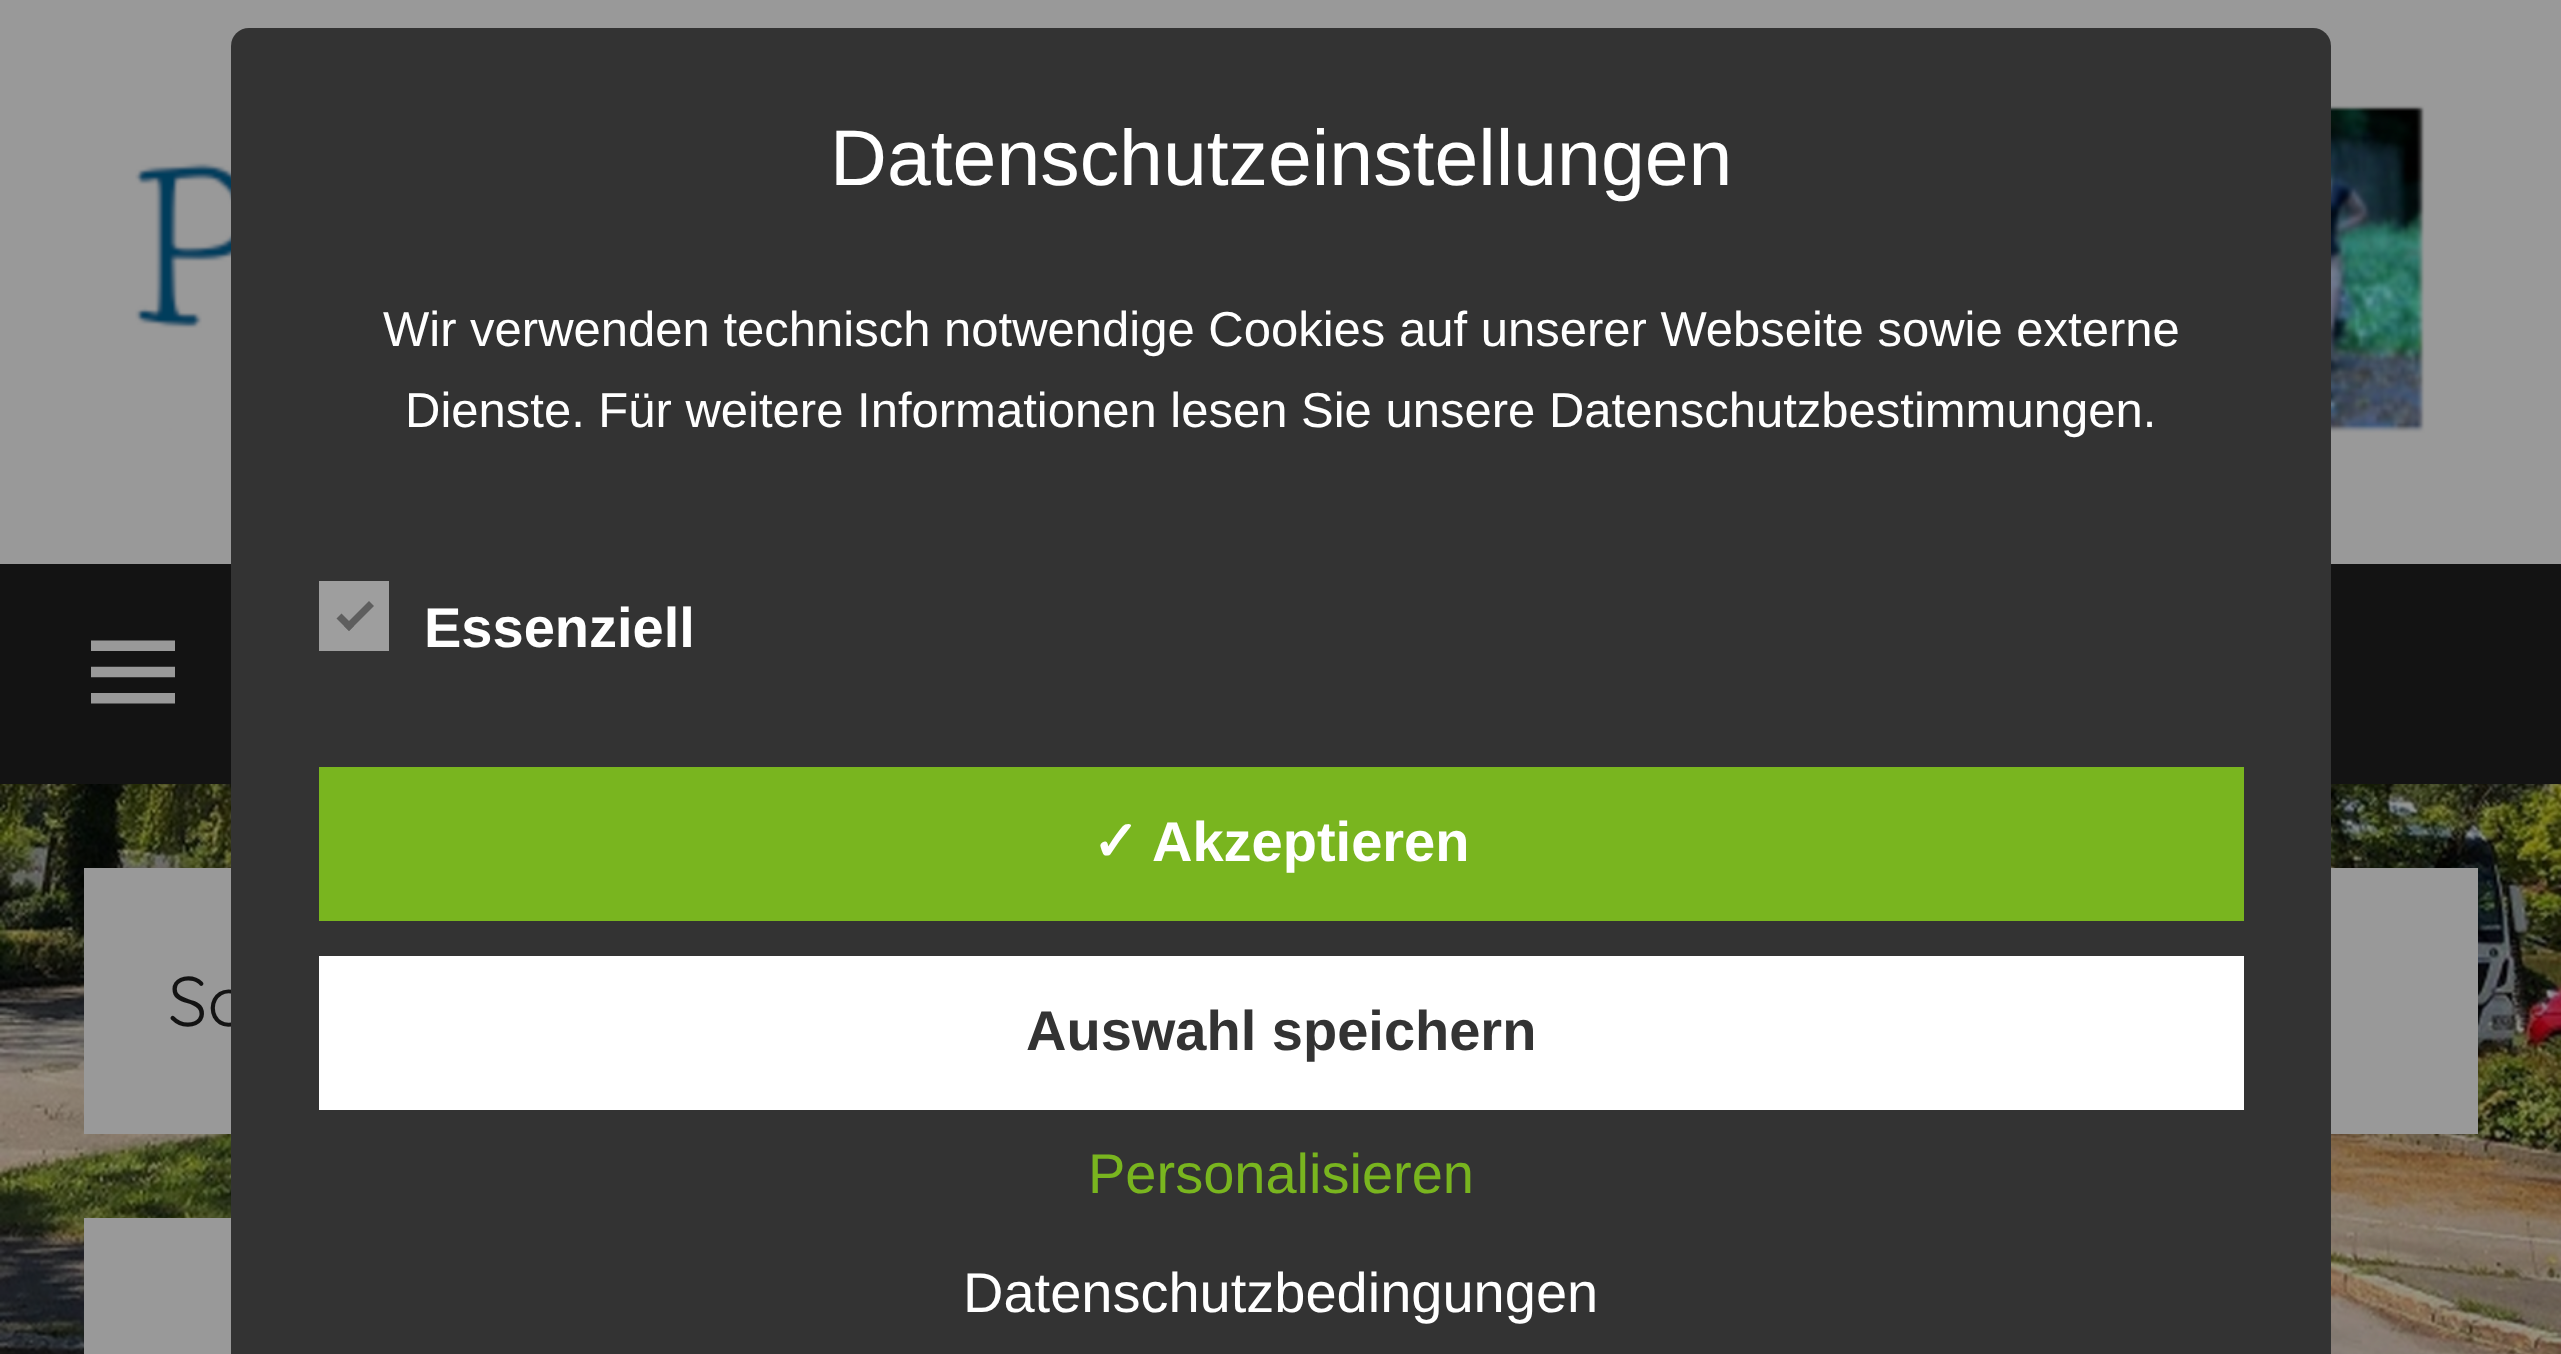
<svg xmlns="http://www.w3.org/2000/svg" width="2561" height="1354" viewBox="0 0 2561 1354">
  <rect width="100%" height="100%" fill="#ffffff"/>
  <image x="0" y="784" width="2561" height="570" href="img1.png"/>
  <rect x="0" y="0" width="2561" height="564" fill="#999999"/>
  <image x="135" y="105" width="2290" height="328" href="img2.png"/>
  <rect x="0" y="564" width="2561" height="220" fill="#131313"/>
  <image x="91" y="640" width="84" height="64" href="img3.png"/>
  <rect x="84" y="868" width="2394" height="266" fill="#999999"/>
  <text x="168" y="1026" font-family="Quicksand" font-size="70" fill="#131313">Sc</text>
  <rect x="84" y="1218" width="147" height="136" fill="#999999"/>
  <rect x="231" y="28" width="2100" height="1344" rx="18" fill="#333333"/>
  <text x="830" y="185" font-family="Liberation Sans" font-size="78.8" fill="#ffffff">Datenschutzeinstellungen</text>
  <text x="383" y="346" font-family="Liberation Sans" font-size="49" fill="#ffffff">Wir verwenden technisch notwendige Cookies auf unserer Webseite sowie externe</text>
  <text x="405" y="427" font-family="Liberation Sans" font-size="49" fill="#ffffff">Dienste. Für weitere Informationen lesen Sie unsere Datenschutzbestimmungen.</text>
  <rect x="319" y="581" width="70" height="70" fill="#9e9e9e"/>
  <path d="M369 601L374 606L349 631L344 626Z" fill="#5e5e5e"/>
  <path d="M341.5 613.5L354 626L349 631L336.5 618.5Z" fill="#5e5e5e"/>
  <text x="424" y="647" font-family="Liberation Sans" font-size="56" font-weight="bold" fill="#ffffff">Essenziell</text>
  <rect x="319" y="767" width="1925" height="154" fill="#79b51f"/>
  <text x="1092" y="861" font-family="DejaVu Sans" font-size="56" font-weight="bold" fill="#ffffff">✓</text>
  <text x="1152" y="861" font-family="Liberation Sans" font-size="56" font-weight="bold" fill="#ffffff">Akzeptieren</text>
  <rect x="319" y="956" width="1925" height="154" fill="#ffffff"/>
  <text x="1026" y="1050" font-family="Liberation Sans" font-size="56" font-weight="bold" fill="#333333">Auswahl speichern</text>
  <text x="1088" y="1193" font-family="Liberation Sans" font-size="56" fill="#79b51f">Personalisieren</text>
  <text x="963" y="1312" font-family="Liberation Sans" font-size="56" fill="#ffffff">Datenschutzbedingungen</text>
</svg>
